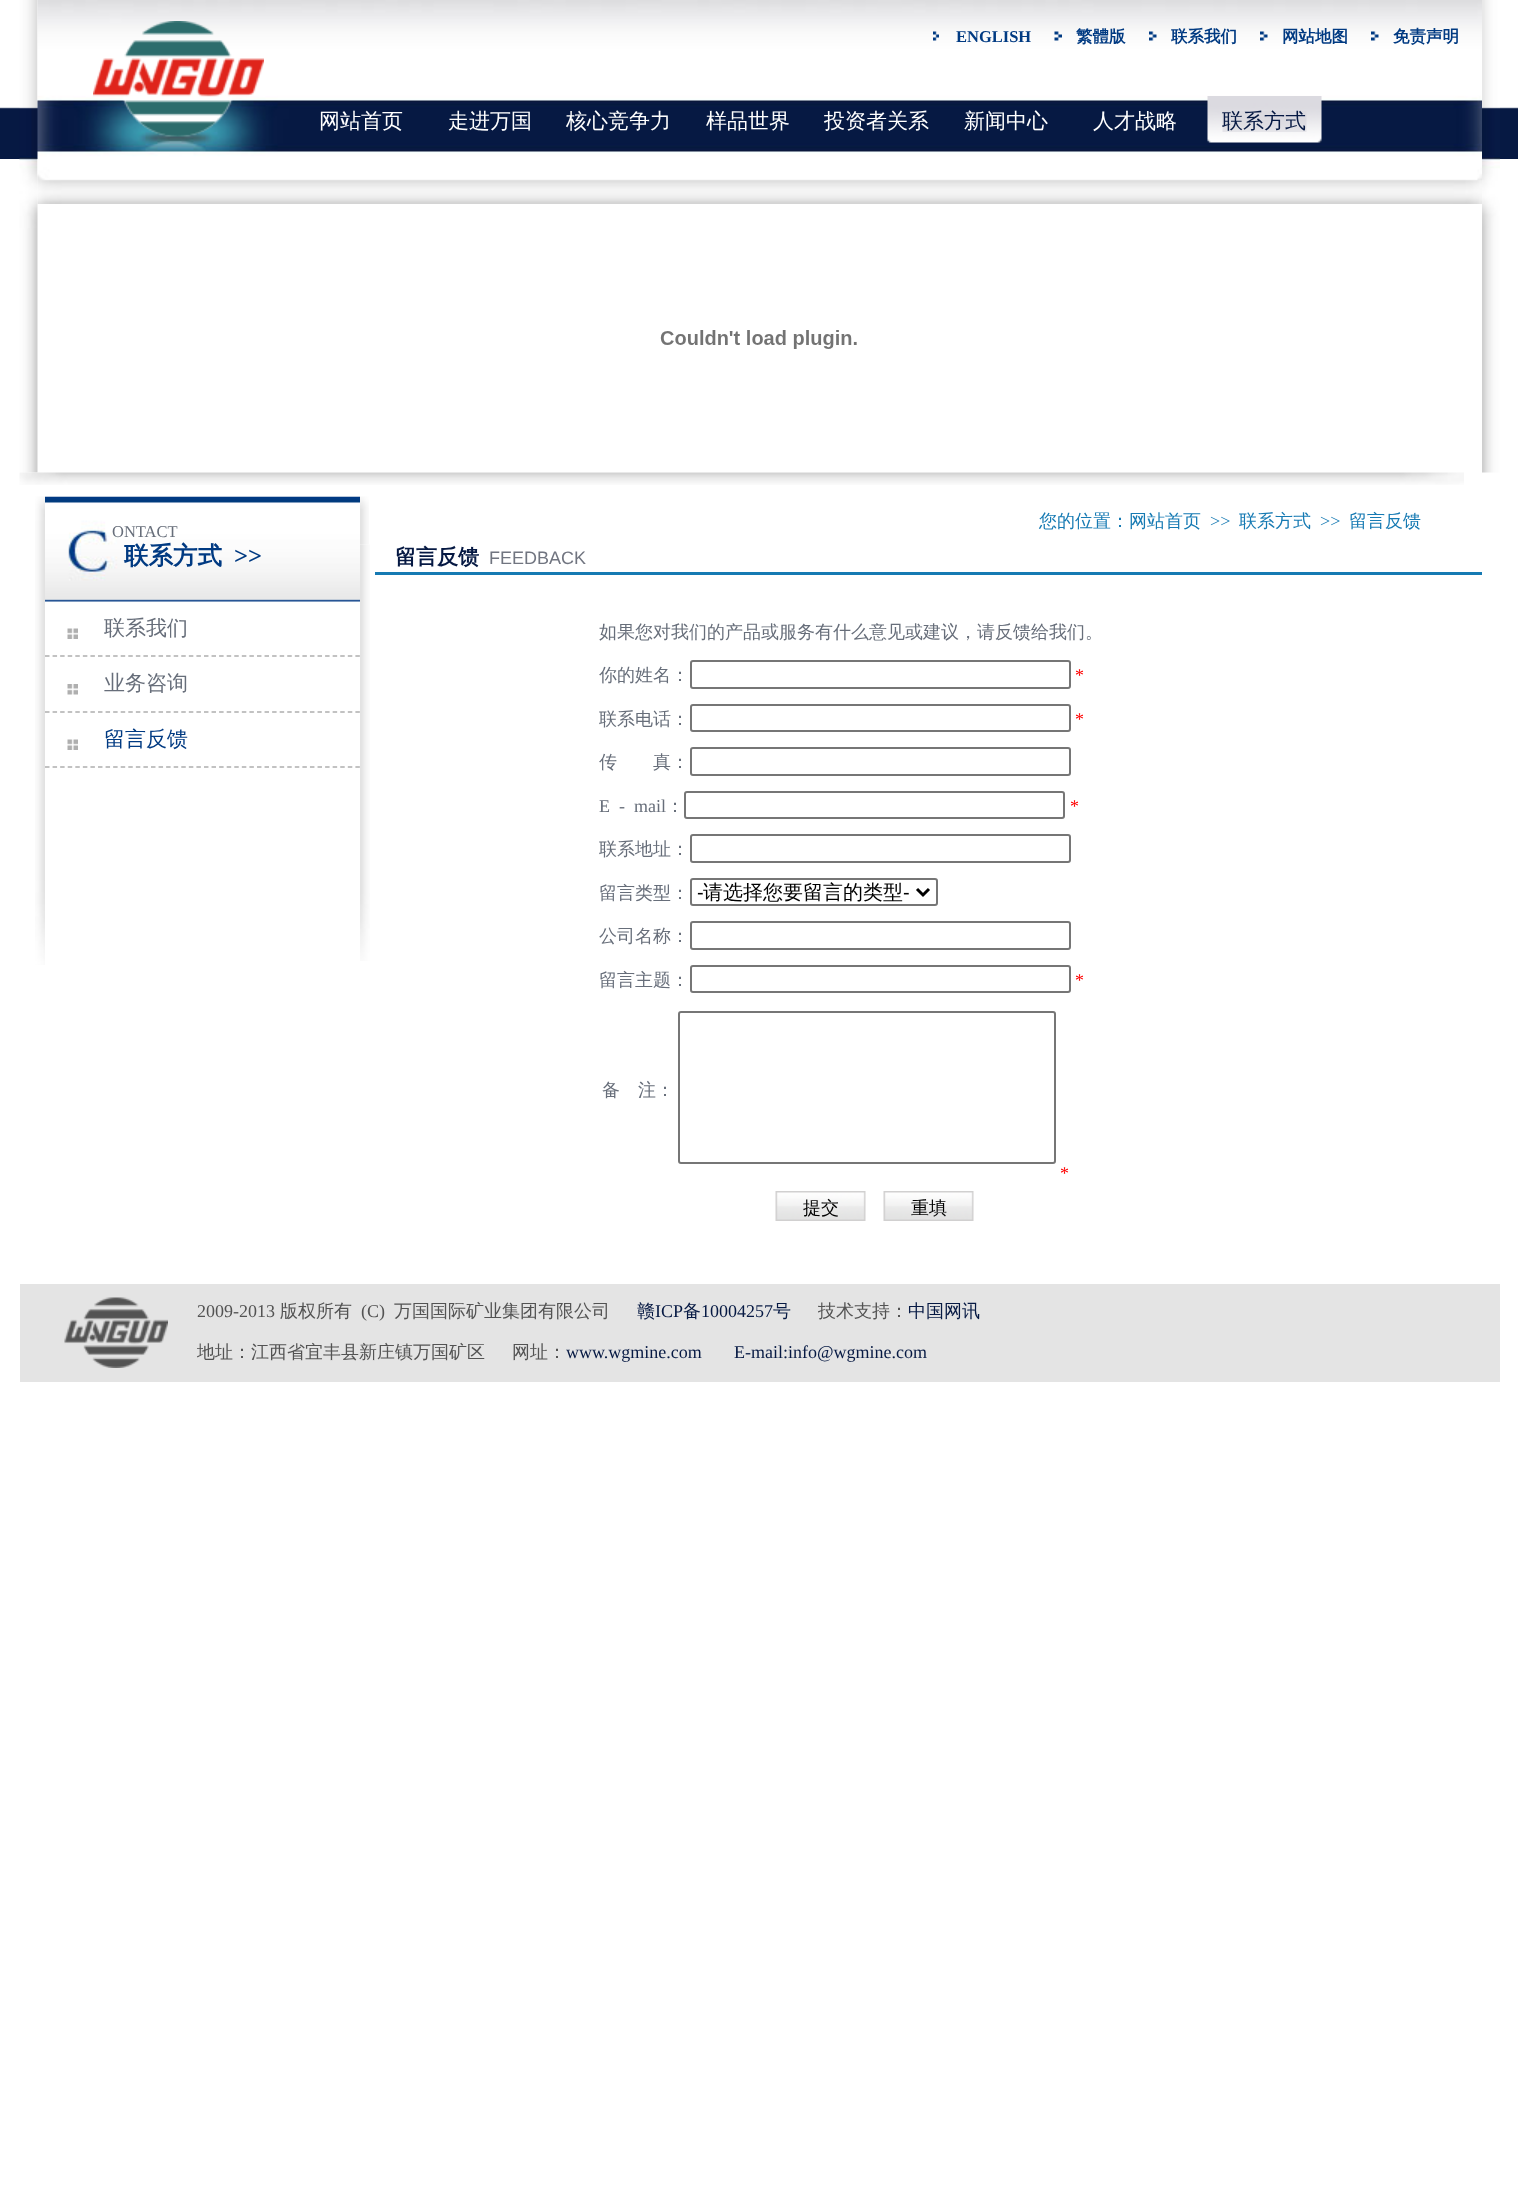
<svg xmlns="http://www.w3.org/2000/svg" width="1518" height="2188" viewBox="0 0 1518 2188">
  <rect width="100%" height="100%" fill="#ffffff"/>
  <image x="0" y="107" width="1518" height="52" href="img1.png"/>
  <image x="19" y="0" width="19" height="473" href="img2.png"/>
  <image x="37" y="0" width="1445" height="204" href="img3.png"/>
  <image x="93" y="21" width="171" height="116" href="img4.png"/>
  <image x="933" y="31" width="6" height="10" href="img5.png"/>
  <text x="956" y="42" font-family="Liberation Serif" font-size="16.5" font-weight="bold" fill="#003a82">ENGLISH</text>
  <image x="1054" y="31" width="8" height="10" href="img6.png"/>
  <text x="1076" y="42" font-family="WenQuanYi Zen Hei" font-size="16.5" font-weight="bold" fill="#003a82">繁體版</text>
  <image x="1149" y="31" width="8" height="10" href="img7.png"/>
  <text x="1171" y="42" font-family="WenQuanYi Zen Hei" font-size="16.5" font-weight="bold" fill="#003a82">联系我们</text>
  <image x="1260" y="31" width="8" height="10" href="img7.png"/>
  <text x="1282" y="42" font-family="WenQuanYi Zen Hei" font-size="16.5" font-weight="bold" fill="#003a82">网站地图</text>
  <image x="1371" y="31" width="8" height="10" href="img7.png"/>
  <text x="1393" y="42" font-family="WenQuanYi Zen Hei" font-size="16.5" font-weight="bold" fill="#003a82">免责声明</text>
  <text x="319" y="128" font-family="WenQuanYi Zen Hei" font-size="21" font-weight="500" fill="#ffffff">网站首页</text>
  <text x="448" y="128" font-family="WenQuanYi Zen Hei" font-size="21" font-weight="500" fill="#ffffff">走进万国</text>
  <text x="566" y="128" font-family="WenQuanYi Zen Hei" font-size="21" font-weight="500" fill="#ffffff">核心竞争力</text>
  <text x="706" y="128" font-family="WenQuanYi Zen Hei" font-size="21" font-weight="500" fill="#ffffff">样品世界</text>
  <text x="824" y="128" font-family="WenQuanYi Zen Hei" font-size="21" font-weight="500" fill="#ffffff">投资者关系</text>
  <text x="964" y="128" font-family="WenQuanYi Zen Hei" font-size="21" font-weight="500" fill="#ffffff">新闻中心</text>
  <text x="1093" y="128" font-family="WenQuanYi Zen Hei" font-size="21" font-weight="500" fill="#ffffff">人才战略</text>
  <image x="1207" y="96" width="115" height="47" href="img8.png"/>
  <image x="1222" y="111" width="85" height="21" href="img9.png"/>
  <text x="1222" y="128" font-family="WenQuanYi Zen Hei" font-size="21" font-weight="500" fill="#061943">联系方式</text>
  <image x="660" y="330" width="197" height="19" href="img10.png"/>
  <image x="1482" y="0" width="18" height="473" href="img11.png"/>
  <image x="19" y="472" width="1445" height="13" href="img12.png"/>
  <image x="35" y="496" width="10" height="469" href="img13.png"/>
  <image x="45" y="496" width="315" height="106" href="img14.png"/>
  <text x="112" y="537" font-family="Liberation Serif" font-size="16.5" fill="#676e7a">ONTACT</text>
  <text x="124" y="564" font-family="WenQuanYi Zen Hei" font-size="24.5" font-weight="bold" fill="#003a82">联系方式</text>
  <text x="234" y="564" font-family="Liberation Serif" font-size="24.5" font-weight="bold" fill="#003a82">&gt;&gt;</text>
  <image x="67" y="628" width="11" height="11" href="img15.png"/>
  <path d="M45 656H360" fill="none" stroke="#afafaf" stroke-width="1.5" stroke-dasharray="4.5 3.07"/>
  <text x="104" y="635" font-family="WenQuanYi Zen Hei" font-size="21" font-weight="500" fill="#676e7a">联系我们</text>
  <image x="67" y="684" width="11" height="11" href="img16.png"/>
  <path d="M45 712H360" fill="none" stroke="#afafaf" stroke-width="1.5" stroke-dasharray="4.5 3.07"/>
  <text x="104" y="690" font-family="WenQuanYi Zen Hei" font-size="21" font-weight="500" fill="#676e7a">业务咨询</text>
  <image x="67" y="739" width="11" height="11" href="img15.png"/>
  <path d="M45 767H360" fill="none" stroke="#afafaf" stroke-width="1.5" stroke-dasharray="4.5 3.07"/>
  <text x="104" y="746" font-family="WenQuanYi Zen Hei" font-size="21" font-weight="500" fill="#003a82">留言反馈</text>
  <image x="360" y="496" width="9" height="49" href="img17.png"/>
  <text x="1039" y="527" font-family="WenQuanYi Zen Hei" font-size="18" font-weight="500" fill="#167ab3">您的位置：网站首页</text>
  <text x="1210" y="527" font-family="Liberation Serif" font-size="18" fill="#167ab3">&gt;&gt;</text>
  <text x="1239" y="527" font-family="WenQuanYi Zen Hei" font-size="18" font-weight="500" fill="#167ab3">联系方式</text>
  <text x="1320" y="527" font-family="Liberation Serif" font-size="18" fill="#167ab3">&gt;&gt;</text>
  <text x="1349" y="527" font-family="WenQuanYi Zen Hei" font-size="18" font-weight="500" fill="#167ab3">留言反馈</text>
  <image x="360" y="544" width="10" height="417" href="img18.png"/>
  <text x="395" y="564" font-family="WenQuanYi Zen Hei" font-size="21" font-weight="bold" fill="#061943">留言反馈</text>
  <text x="489" y="564" font-family="Liberation Sans" font-size="18" fill="#717580">FEEDBACK</text>
  <rect x="375" y="572" width="1107" height="3" fill="#167ab3"/>
  <text x="599" y="638" font-family="WenQuanYi Zen Hei" font-size="18" font-weight="500" fill="#676e7a">如果您对我们的产品或服务有什么意见或建议，请反馈给我们。</text>
  <text x="599" y="681" font-family="WenQuanYi Zen Hei" font-size="18" font-weight="500" fill="#676e7a">你的姓名：</text>
  <rect x="691" y="661" width="379" height="27" rx="2" fill="none" stroke="#767676" stroke-width="2"/>
  <text x="1075" y="681" font-family="Liberation Serif" font-size="18" fill="#ff0000">*</text>
  <text x="599" y="725" font-family="WenQuanYi Zen Hei" font-size="18" font-weight="500" fill="#676e7a">联系电话：</text>
  <rect x="691" y="705" width="379" height="26" rx="2" fill="none" stroke="#767676" stroke-width="2"/>
  <text x="1075" y="725" font-family="Liberation Serif" font-size="18" fill="#ff0000">*</text>
  <text x="599" y="768" font-family="WenQuanYi Zen Hei" font-size="18" font-weight="500" fill="#676e7a">传　　真：</text>
  <rect x="691" y="748" width="379" height="27" rx="2" fill="none" stroke="#767676" stroke-width="2"/>
  <text x="599" y="812" font-family="Liberation Serif" font-size="18" fill="#676e7a" xml:space="preserve">E  -  mail</text>
  <text x="666" y="812" font-family="WenQuanYi Zen Hei" font-size="18" font-weight="500" fill="#676e7a">：</text>
  <rect x="685" y="792" width="379" height="26" rx="2" fill="none" stroke="#767676" stroke-width="2"/>
  <text x="1070" y="812" font-family="Liberation Serif" font-size="18" fill="#ff0000">*</text>
  <text x="599" y="855" font-family="WenQuanYi Zen Hei" font-size="18" font-weight="500" fill="#676e7a">联系地址：</text>
  <rect x="691" y="835" width="379" height="27" rx="2" fill="none" stroke="#767676" stroke-width="2"/>
  <text x="599" y="899" font-family="WenQuanYi Zen Hei" font-size="18" font-weight="500" fill="#676e7a">留言类型：</text>
  <rect x="691" y="879" width="246" height="26" rx="2" fill="none" stroke="#767676" stroke-width="2"/>
  <path d="M917 889L923 895L929 889" fill="none" stroke="#000000" stroke-width="3"/>
  <text x="697" y="899" font-family="Liberation Sans" font-size="20" fill="#000000">-</text>
  <text x="703" y="899" font-family="WenQuanYi Zen Hei" font-size="20" font-weight="500" fill="#000000">请选择您要留言的类型</text>
  <text x="903" y="899" font-family="Liberation Sans" font-size="20" fill="#000000">-</text>
  <text x="599" y="942" font-family="WenQuanYi Zen Hei" font-size="18" font-weight="500" fill="#676e7a">公司名称：</text>
  <rect x="691" y="922" width="379" height="27" rx="2" fill="none" stroke="#767676" stroke-width="2"/>
  <text x="599" y="986" font-family="WenQuanYi Zen Hei" font-size="18" font-weight="500" fill="#676e7a">留言主题：</text>
  <rect x="691" y="966" width="379" height="26" rx="2" fill="none" stroke="#767676" stroke-width="2"/>
  <text x="1075" y="986" font-family="Liberation Serif" font-size="18" fill="#ff0000">*</text>
  <text x="602" y="1096" font-family="WenQuanYi Zen Hei" font-size="18" font-weight="500" fill="#676e7a">备</text>
  <text x="638" y="1096" font-family="WenQuanYi Zen Hei" font-size="18" font-weight="500" fill="#676e7a">注：</text>
  <rect x="679" y="1012" width="376" height="151" rx="2" fill="none" stroke="#767676" stroke-width="2"/>
  <text x="1060" y="1179" font-family="Liberation Serif" font-size="18" fill="#ff0000">*</text>
  <image x="775" y="1191" width="91" height="30" href="img19.png"/>
  <text x="803" y="1214" font-family="WenQuanYi Zen Hei" font-size="18" font-weight="500" fill="#000000">提交</text>
  <image x="883" y="1191" width="91" height="30" href="img19.png"/>
  <text x="911" y="1214" font-family="WenQuanYi Zen Hei" font-size="18" font-weight="500" fill="#000000">重填</text>
  <rect x="20" y="1284" width="1480" height="98" fill="#e4e4e4"/>
  <image x="64" y="1297" width="104" height="71" href="img20.png"/>
  <text x="197" y="1317" font-family="Liberation Serif" font-size="18" fill="#535353">2009-2013</text>
  <text x="280" y="1317" font-family="WenQuanYi Zen Hei" font-size="18" font-weight="500" fill="#535353">版权所有</text>
  <text x="361" y="1317" font-family="Liberation Serif" font-size="18" fill="#535353">(C)</text>
  <text x="394" y="1317" font-family="WenQuanYi Zen Hei" font-size="18" font-weight="500" fill="#535353">万国国际矿业集团有限公司</text>
  <text x="637" y="1317" font-family="WenQuanYi Zen Hei" font-size="18" font-weight="500" fill="#061943">赣</text>
  <text x="655" y="1317" font-family="Liberation Serif" font-size="18" fill="#061943">ICP</text>
  <text x="683" y="1317" font-family="WenQuanYi Zen Hei" font-size="18" font-weight="500" fill="#061943">备</text>
  <text x="701" y="1317" font-family="Liberation Serif" font-size="18" fill="#061943">10004257</text>
  <text x="773" y="1317" font-family="WenQuanYi Zen Hei" font-size="18" font-weight="500" fill="#061943">号</text>
  <text x="818" y="1317" font-family="WenQuanYi Zen Hei" font-size="18" font-weight="500" fill="#535353">技术支持：</text>
  <text x="908" y="1317" font-family="WenQuanYi Zen Hei" font-size="18" font-weight="500" fill="#061943">中国网讯</text>
  <text x="197" y="1358" font-family="WenQuanYi Zen Hei" font-size="18" font-weight="500" fill="#535353">地址：江西省宜丰县新庄镇万国矿区</text>
  <text x="512" y="1358" font-family="WenQuanYi Zen Hei" font-size="18" font-weight="500" fill="#535353">网址：</text>
  <text x="566" y="1358" font-family="Liberation Serif" font-size="18" fill="#061943">www.wgmine.com</text>
  <text x="734" y="1358" font-family="Liberation Serif" font-size="18" fill="#061943">E-mail:info@wgmine.com</text>
</svg>
